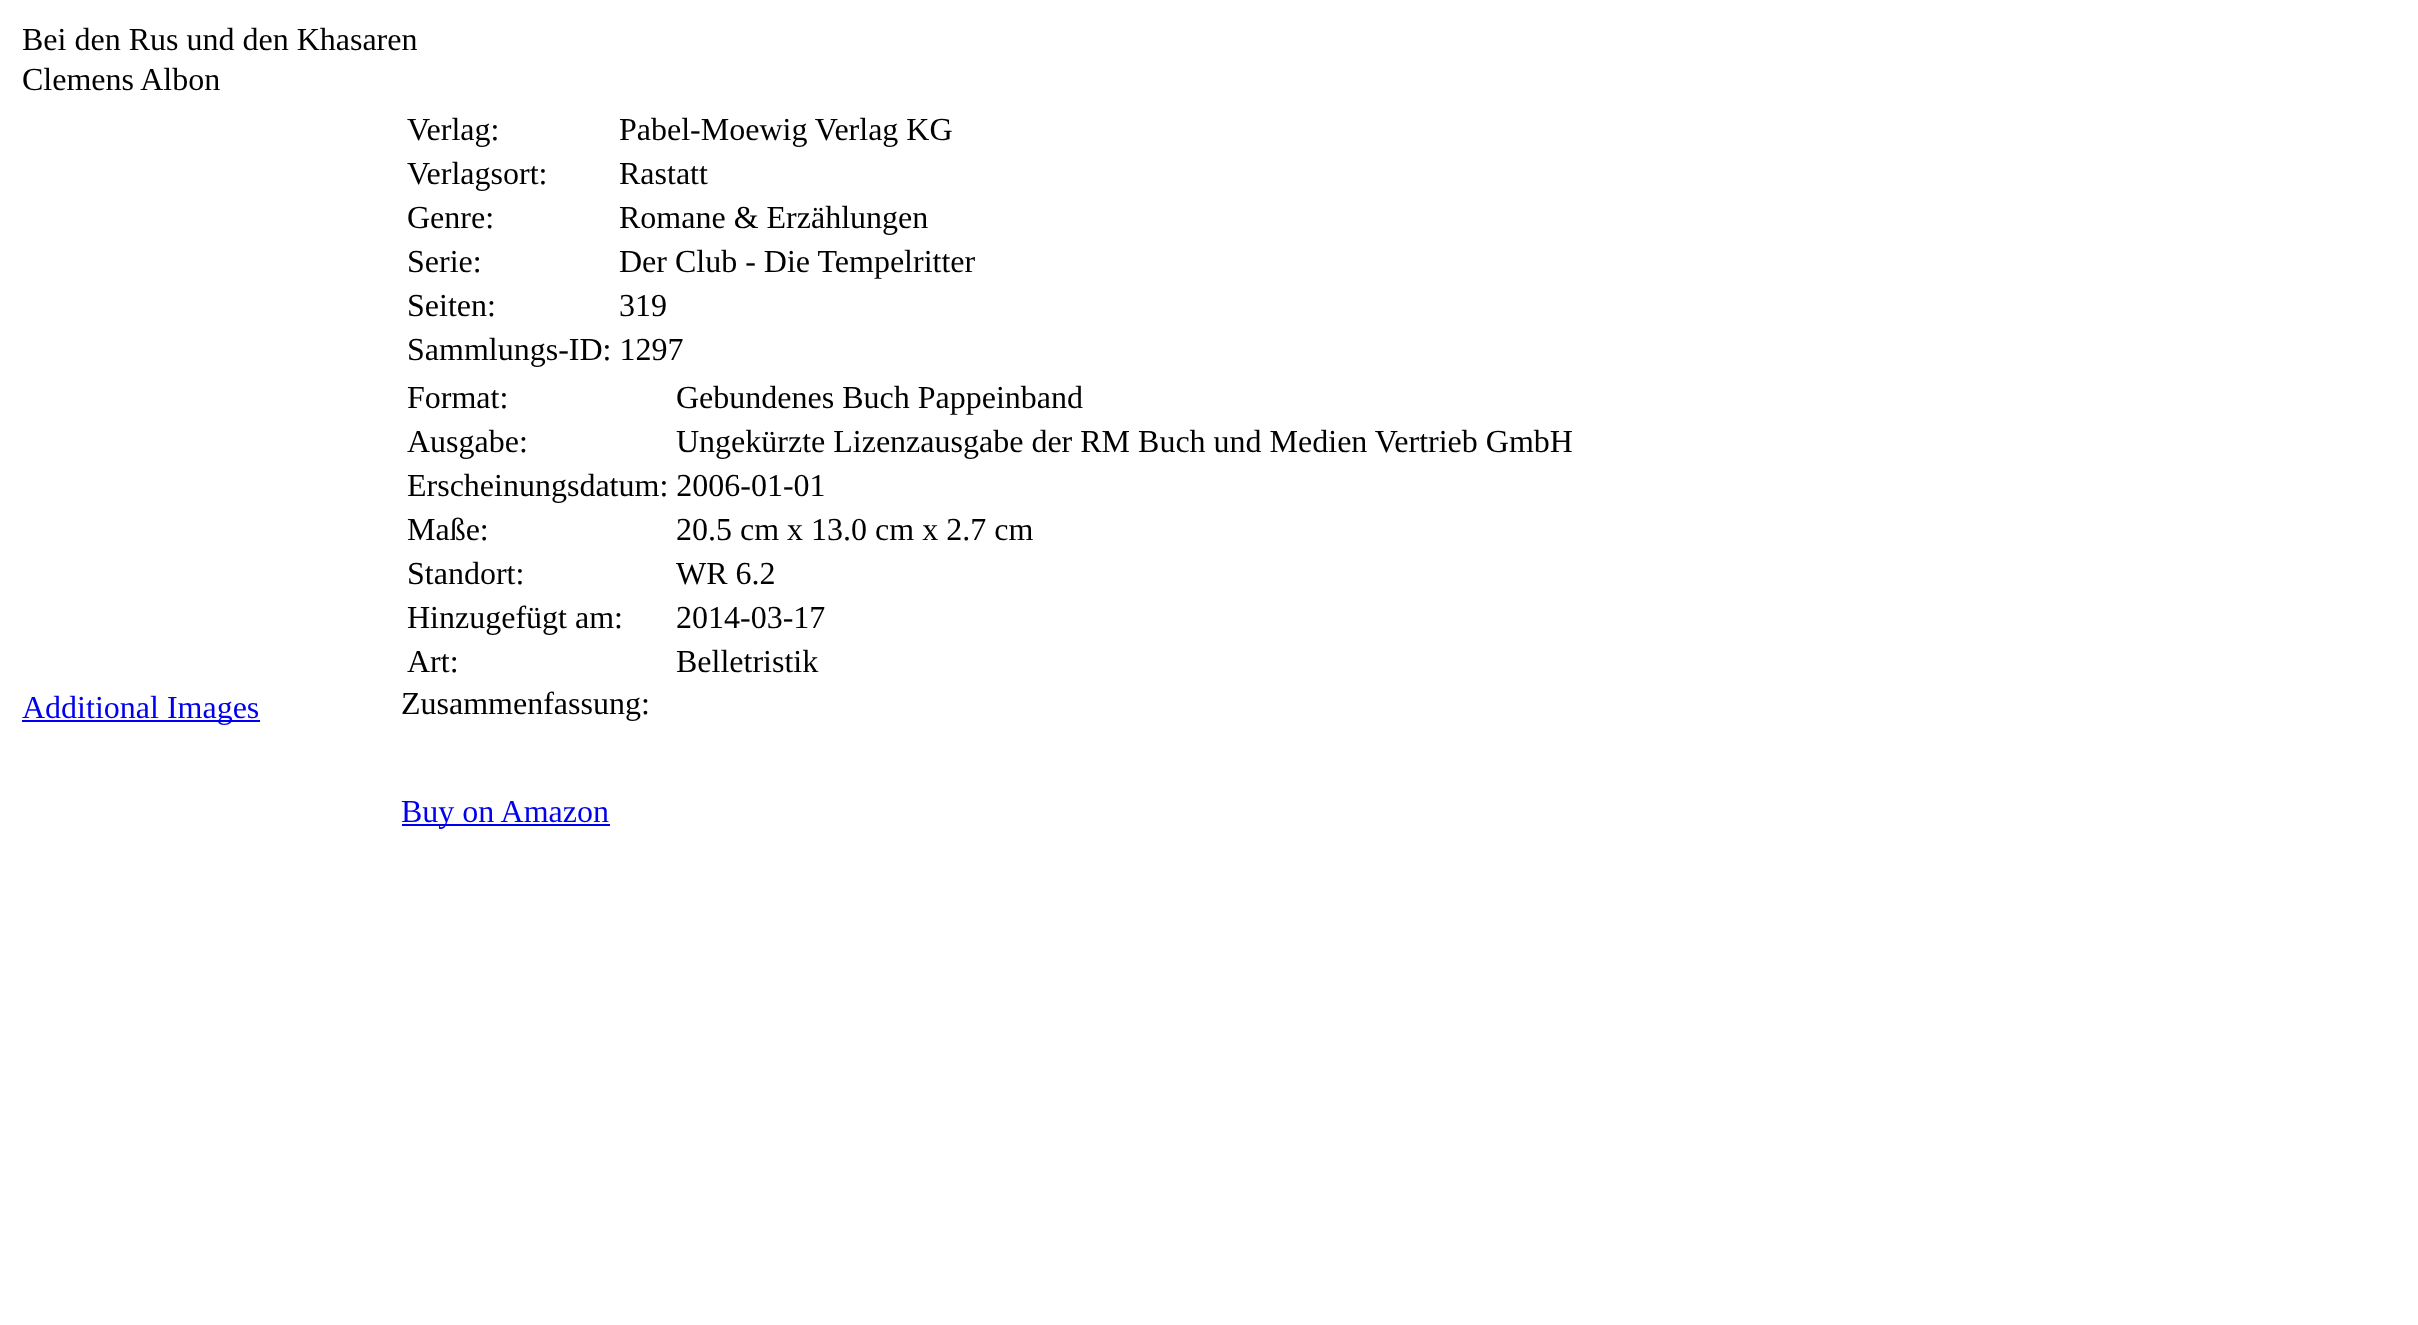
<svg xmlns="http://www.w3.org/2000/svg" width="2418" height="1325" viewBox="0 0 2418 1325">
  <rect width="100%" height="100%" fill="#ffffff"/>
  <text x="22" y="50" font-family="Liberation Serif" font-size="32" fill="#000000">Bei den Rus und den Khasaren</text>
  <text x="22" y="90" font-family="Liberation Serif" font-size="32" fill="#000000">Clemens Albon</text>
  <rect x="22" y="720" width="238" height="2" fill="#0000ee"/>
  <text x="22" y="718" font-family="Liberation Serif" font-size="32" fill="#0000ee">Additional Images</text>
  <text x="407" y="140" font-family="Liberation Serif" font-size="32" fill="#000000">Verlag:</text>
  <text x="619" y="140" font-family="Liberation Serif" font-size="32" fill="#000000">Pabel-Moewig Verlag KG</text>
  <text x="407" y="184" font-family="Liberation Serif" font-size="32" fill="#000000">Verlagsort:</text>
  <text x="619" y="184" font-family="Liberation Serif" font-size="32" fill="#000000">Rastatt</text>
  <text x="407" y="228" font-family="Liberation Serif" font-size="32" fill="#000000">Genre:</text>
  <text x="619" y="228" font-family="Liberation Serif" font-size="32" fill="#000000">Romane &amp; Erzählungen</text>
  <text x="407" y="272" font-family="Liberation Serif" font-size="32" fill="#000000">Serie:</text>
  <text x="619" y="272" font-family="Liberation Serif" font-size="32" fill="#000000">Der Club - Die Tempelritter</text>
  <text x="407" y="316" font-family="Liberation Serif" font-size="32" fill="#000000">Seiten:</text>
  <text x="619" y="316" font-family="Liberation Serif" font-size="32" fill="#000000">319</text>
  <text x="407" y="360" font-family="Liberation Serif" font-size="32" fill="#000000">Sammlungs-ID: 1297</text>
  <text x="407" y="408" font-family="Liberation Serif" font-size="32" fill="#000000">Format:</text>
  <text x="676" y="408" font-family="Liberation Serif" font-size="32" fill="#000000">Gebundenes Buch Pappeinband</text>
  <text x="407" y="452" font-family="Liberation Serif" font-size="32" fill="#000000">Ausgabe:</text>
  <text x="676" y="452" font-family="Liberation Serif" font-size="32" fill="#000000">Ungekürzte Lizenzausgabe der RM Buch und Medien Vertrieb GmbH</text>
  <text x="407" y="496" font-family="Liberation Serif" font-size="32" fill="#000000">Erscheinungsdatum: 2006-01-01</text>
  <text x="407" y="540" font-family="Liberation Serif" font-size="32" fill="#000000">Maße:</text>
  <text x="676" y="540" font-family="Liberation Serif" font-size="32" fill="#000000">20.5 cm x 13.0 cm x 2.7 cm</text>
  <text x="407" y="584" font-family="Liberation Serif" font-size="32" fill="#000000">Standort:</text>
  <text x="676" y="584" font-family="Liberation Serif" font-size="32" fill="#000000">WR 6.2</text>
  <text x="407" y="628" font-family="Liberation Serif" font-size="32" fill="#000000">Hinzugefügt am:</text>
  <text x="676" y="628" font-family="Liberation Serif" font-size="32" fill="#000000">2014-03-17</text>
  <text x="407" y="672" font-family="Liberation Serif" font-size="32" fill="#000000">Art:</text>
  <text x="676" y="672" font-family="Liberation Serif" font-size="32" fill="#000000">Belletristik</text>
  <text x="401" y="714" font-family="Liberation Serif" font-size="32" fill="#000000">Zusammenfassung:</text>
  <rect x="402" y="824" width="208" height="2" fill="#0000ee"/>
  <text x="401" y="822" font-family="Liberation Serif" font-size="32" fill="#0000ee">Buy on Amazon</text>
</svg>
